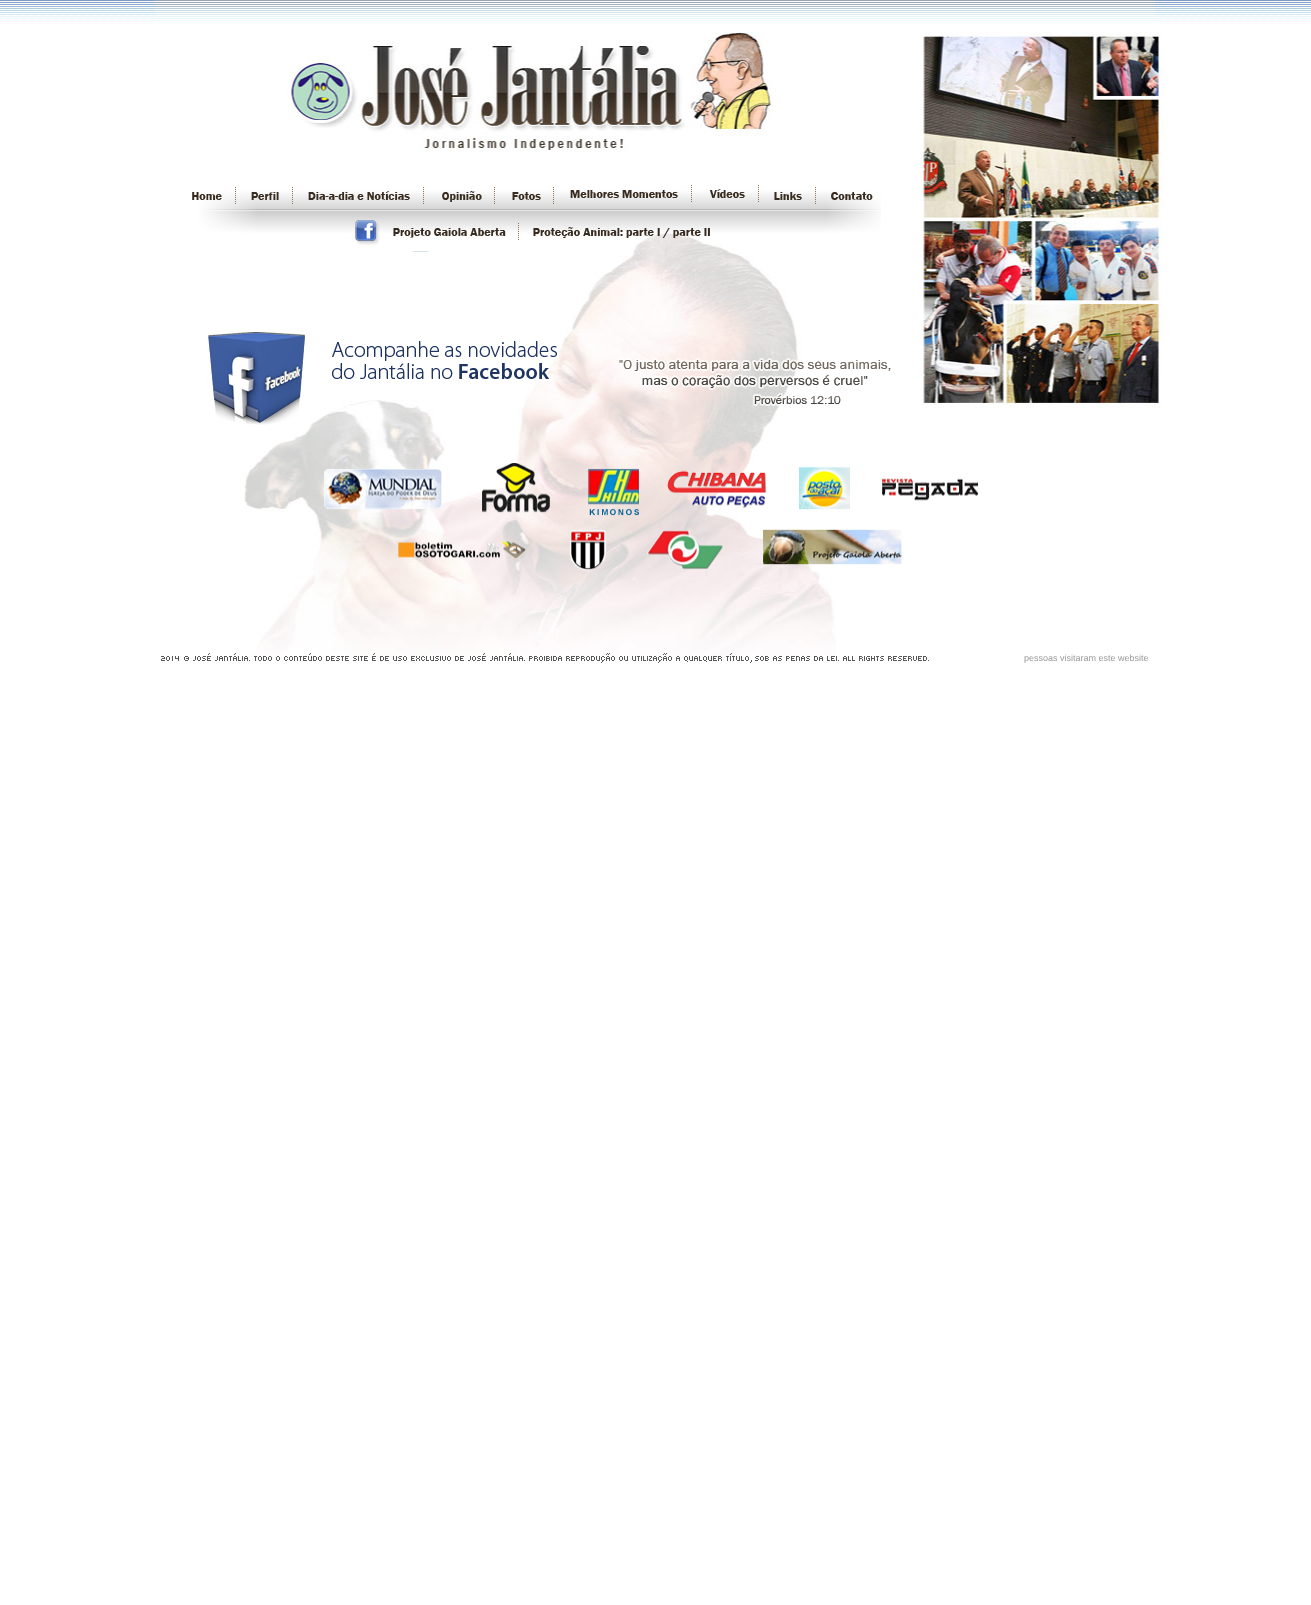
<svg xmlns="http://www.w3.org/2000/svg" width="1311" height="1605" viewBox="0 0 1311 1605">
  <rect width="100%" height="100%" fill="#ffffff"/>
  <image x="0" y="0" width="1311" height="658" href="img1.png"/>
  <image x="192" y="185" width="689" height="67" href="img2.png"/>
  <image x="208" y="332" width="351" height="93" href="img3.png"/>
  <image x="618" y="358" width="273" height="48" href="img4.png"/>
  <image x="324" y="463" width="654" height="108" href="img5.png"/>
  <image x="161" y="653" width="768" height="10" href="img6.png"/>
  <text x="1024" y="661" font-family="Liberation Sans" font-size="9" fill="#999999">pessoas visitaram este website</text>
</svg>
